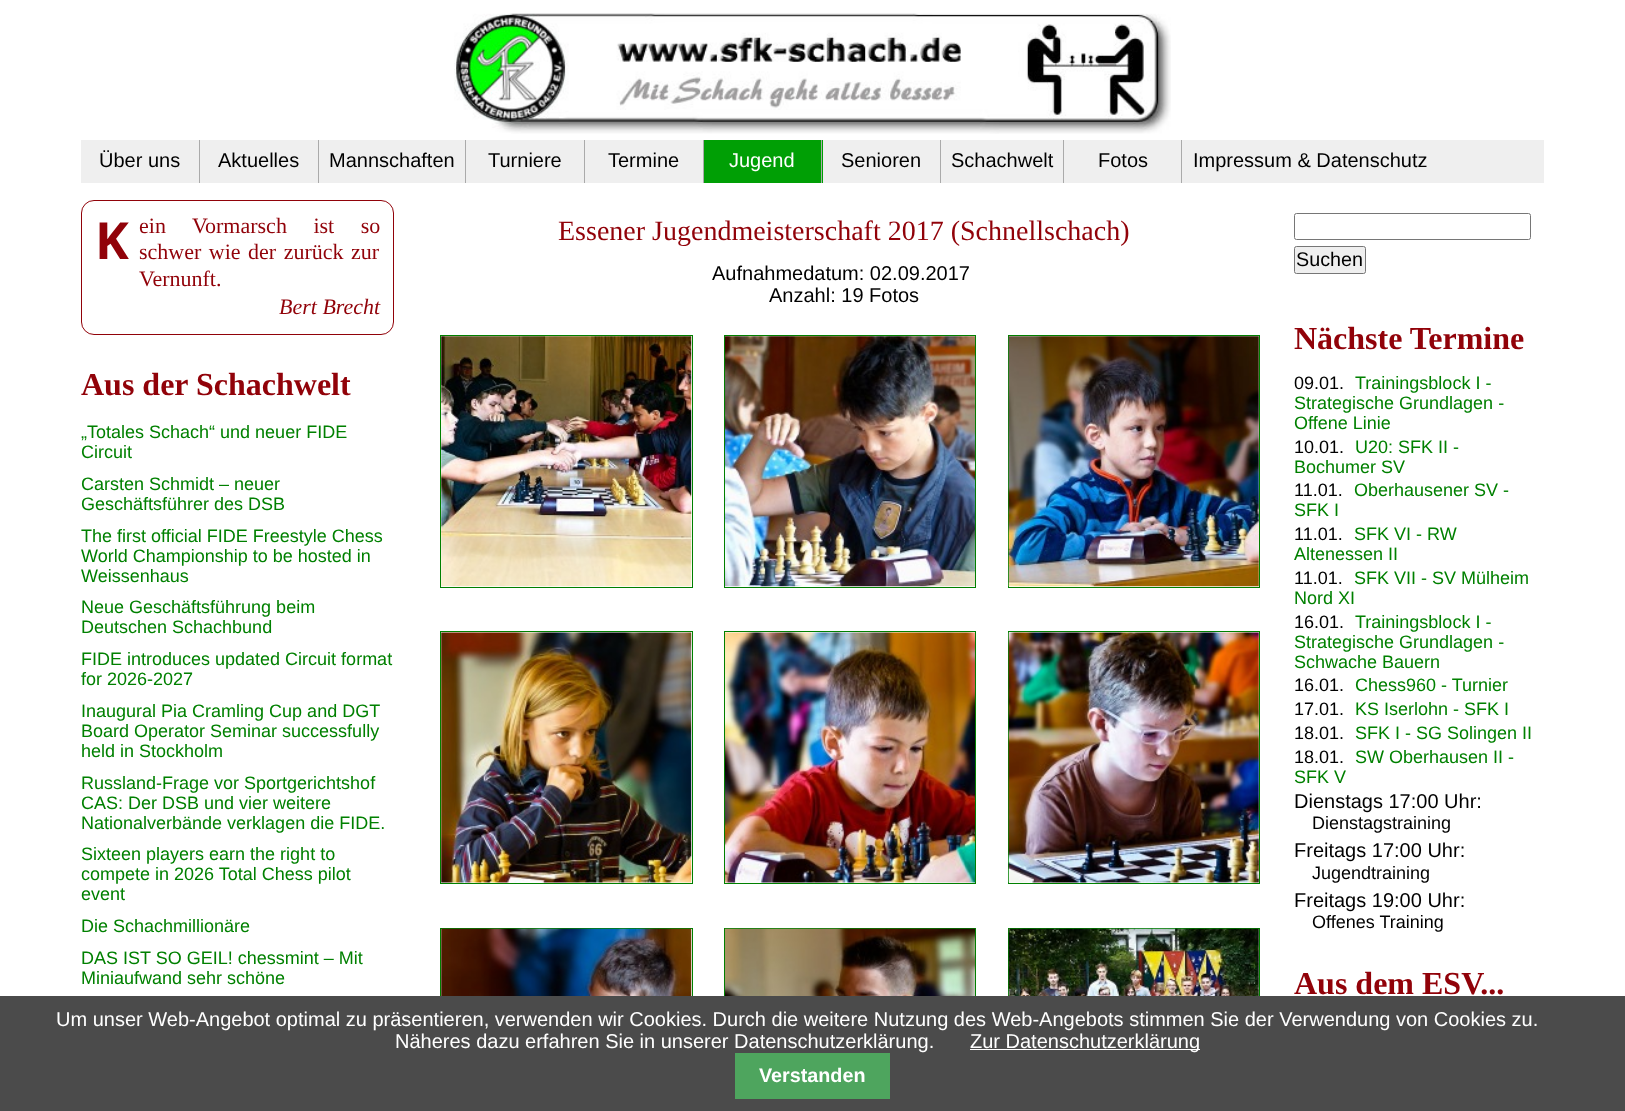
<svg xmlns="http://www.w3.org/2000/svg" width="1625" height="1111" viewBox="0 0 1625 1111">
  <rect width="100%" height="100%" fill="#ffffff"/>
  <image x="454" y="13" width="717" height="121" href="img1.png"/>
  <rect x="81" y="140" width="1463" height="43" fill="#efefef"/>
  <rect x="199" y="140" width="1" height="43" fill="#aaaaaa"/>
  <text x="99" y="167" font-family="Liberation Sans" font-size="20" fill="#000000">Über uns</text>
  <rect x="318" y="140" width="1" height="43" fill="#aaaaaa"/>
  <text x="218" y="167" font-family="Liberation Sans" font-size="20" fill="#000000">Aktuelles</text>
  <rect x="465" y="140" width="1" height="43" fill="#aaaaaa"/>
  <text x="329" y="167" font-family="Liberation Sans" font-size="20" fill="#000000">Mannschaften</text>
  <rect x="584" y="140" width="1" height="43" fill="#aaaaaa"/>
  <text x="488" y="167" font-family="Liberation Sans" font-size="20" fill="#000000">Turniere</text>
  <rect x="703" y="140" width="1" height="43" fill="#aaaaaa"/>
  <text x="608" y="167" font-family="Liberation Sans" font-size="20" fill="#000000">Termine</text>
  <rect x="704" y="140" width="119" height="43" fill="#009f05"/>
  <rect x="821" y="140" width="1" height="43" fill="#aaaaaa"/>
  <text x="729" y="167" font-family="Liberation Sans" font-size="20" fill="#ffffff">Jugend</text>
  <rect x="940" y="140" width="1" height="43" fill="#aaaaaa"/>
  <text x="841" y="167" font-family="Liberation Sans" font-size="20" fill="#000000">Senioren</text>
  <rect x="1063" y="140" width="1" height="43" fill="#aaaaaa"/>
  <text x="951" y="167" font-family="Liberation Sans" font-size="20" fill="#000000">Schachwelt</text>
  <rect x="1181" y="140" width="1" height="43" fill="#aaaaaa"/>
  <text x="1098" y="167" font-family="Liberation Sans" font-size="20" fill="#000000">Fotos</text>
  <text x="1193" y="167" font-family="Liberation Sans" font-size="20" fill="#000000">Impressum &amp; Datenschutz</text>
  <rect x="81.5" y="200.5" width="312" height="134" rx="12.5" fill="none" stroke="#910209"/>
  <text x="95" y="259" font-family="Noto Sans" font-size="51" font-weight="bold" fill="#910209">K</text>
  <text x="139" y="233" word-spacing="21" font-family="Liberation Serif" font-size="22" fill="#910209">ein Vormarsch ist so</text>
  <text x="139" y="259" word-spacing="2" font-family="Liberation Serif" font-size="22" fill="#910209">schwer wie der zurück zur</text>
  <text x="139" y="286" font-family="Liberation Serif" font-size="22" fill="#910209">Vernunft.</text>
  <text x="279" y="314" font-family="Liberation Serif" font-size="22" font-style="italic" fill="#910209">Bert Brecht</text>
  <text x="81" y="395" font-family="Liberation Serif" font-size="32" font-weight="bold" fill="#910209">Aus der Schachwelt</text>
  <text x="81" y="438" font-family="Liberation Sans" font-size="18" fill="#008000">„Totales Schach“ und neuer FIDE</text>
  <text x="81" y="458" font-family="Liberation Sans" font-size="18" fill="#008000">Circuit</text>
  <text x="81" y="490" font-family="Liberation Sans" font-size="18" fill="#008000">Carsten Schmidt – neuer</text>
  <text x="81" y="510" font-family="Liberation Sans" font-size="18" fill="#008000">Geschäftsführer des DSB</text>
  <text x="81" y="542" font-family="Liberation Sans" font-size="18" fill="#008000">The first official FIDE Freestyle Chess</text>
  <text x="81" y="562" font-family="Liberation Sans" font-size="18" fill="#008000">World Championship to be hosted in</text>
  <text x="81" y="582" font-family="Liberation Sans" font-size="18" fill="#008000">Weissenhaus</text>
  <text x="81" y="613" font-family="Liberation Sans" font-size="18" fill="#008000">Neue Geschäftsführung beim</text>
  <text x="81" y="633" font-family="Liberation Sans" font-size="18" fill="#008000">Deutschen Schachbund</text>
  <text x="81" y="665" font-family="Liberation Sans" font-size="18" fill="#008000">FIDE introduces updated Circuit format</text>
  <text x="81" y="685" font-family="Liberation Sans" font-size="18" fill="#008000">for 2026-2027</text>
  <text x="81" y="717" font-family="Liberation Sans" font-size="18" fill="#008000">Inaugural Pia Cramling Cup and DGT</text>
  <text x="81" y="737" font-family="Liberation Sans" font-size="18" fill="#008000">Board Operator Seminar successfully</text>
  <text x="81" y="757" font-family="Liberation Sans" font-size="18" fill="#008000">held in Stockholm</text>
  <text x="81" y="789" font-family="Liberation Sans" font-size="18" fill="#008000">Russland-Frage vor Sportgerichtshof</text>
  <text x="81" y="809" font-family="Liberation Sans" font-size="18" fill="#008000">CAS: Der DSB und vier weitere</text>
  <text x="81" y="829" font-family="Liberation Sans" font-size="18" fill="#008000">Nationalverbände verklagen die FIDE.</text>
  <text x="81" y="860" font-family="Liberation Sans" font-size="18" fill="#008000">Sixteen players earn the right to</text>
  <text x="81" y="880" font-family="Liberation Sans" font-size="18" fill="#008000">compete in 2026 Total Chess pilot</text>
  <text x="81" y="900" font-family="Liberation Sans" font-size="18" fill="#008000">event</text>
  <text x="81" y="932" font-family="Liberation Sans" font-size="18" fill="#008000">Die Schachmillionäre</text>
  <text x="81" y="964" font-family="Liberation Sans" font-size="18" fill="#008000">DAS IST SO GEIL! chessmint – Mit</text>
  <text x="81" y="984" font-family="Liberation Sans" font-size="18" fill="#008000">Miniaufwand sehr schöne</text>
  <text x="558" y="240" font-family="Liberation Serif" font-size="28" fill="#910209">Essener Jugendmeisterschaft 2017 (Schnellschach)</text>
  <text x="712" y="280" font-family="Liberation Sans" font-size="20" fill="#000000">Aufnahmedatum: 02.09.2017</text>
  <text x="769" y="302" font-family="Liberation Sans" font-size="20" fill="#000000">Anzahl: 19 Fotos</text>
  <rect x="440.5" y="335.5" width="252" height="252" fill="none" stroke="#008000"/>
  <image x="441" y="336" width="251" height="251" href="img2.png"/>
  <rect x="724.5" y="335.5" width="251" height="252" fill="none" stroke="#008000"/>
  <image x="725" y="336" width="250" height="251" href="img3.png"/>
  <rect x="1008.5" y="335.5" width="251" height="252" fill="none" stroke="#008000"/>
  <image x="1008" y="336" width="251" height="251" href="img4.png"/>
  <rect x="440.5" y="631.5" width="252" height="252" fill="none" stroke="#008000"/>
  <image x="441" y="632" width="251" height="251" href="img5.png"/>
  <rect x="724.5" y="631.5" width="251" height="252" fill="none" stroke="#008000"/>
  <image x="725" y="632" width="250" height="251" href="img6.png"/>
  <rect x="1008.5" y="631.5" width="251" height="252" fill="none" stroke="#008000"/>
  <image x="1008" y="632" width="251" height="251" href="img7.png"/>
  <rect x="440.5" y="928.5" width="252" height="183" fill="none" stroke="#008000"/>
  <image x="441" y="928" width="251" height="68" href="img8.png"/>
  <rect x="724.5" y="928.5" width="251" height="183" fill="none" stroke="#008000"/>
  <image x="725" y="928" width="250" height="68" href="img9.png"/>
  <rect x="1008.5" y="928.5" width="251" height="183" fill="none" stroke="#008000"/>
  <image x="1008" y="928" width="251" height="68" href="img10.png"/>
  <rect x="1294.5" y="213.5" width="236" height="26" rx="2" fill="none" stroke="#767676"/>
  <rect x="1294.5" y="246.5" width="71" height="27" rx="2" fill="#efefef" stroke="#767676"/>
  <text x="1296" y="266" font-family="Liberation Sans" font-size="19.75" fill="#000000">Suchen</text>
  <text x="1294" y="349" font-family="Liberation Serif" font-size="32" font-weight="bold" fill="#910209">Nächste Termine</text>
  <text x="1294" y="389" font-family="Liberation Sans" font-size="18" fill="#000000">09.01.</text>
  <text x="1355" y="389" font-family="Liberation Sans" font-size="18" fill="#008000">Trainingsblock I -</text>
  <text x="1294" y="409" font-family="Liberation Sans" font-size="18" fill="#008000">Strategische Grundlagen -</text>
  <text x="1294" y="429" font-family="Liberation Sans" font-size="18" fill="#008000">Offene Linie</text>
  <text x="1294" y="453" font-family="Liberation Sans" font-size="18" fill="#000000">10.01.</text>
  <text x="1355" y="453" font-family="Liberation Sans" font-size="18" fill="#008000">U20: SFK II -</text>
  <text x="1294" y="473" font-family="Liberation Sans" font-size="18" fill="#008000">Bochumer SV</text>
  <text x="1294" y="496" font-family="Liberation Sans" font-size="18" fill="#000000">11.01.</text>
  <text x="1354" y="496" font-family="Liberation Sans" font-size="18" fill="#008000">Oberhausener SV -</text>
  <text x="1294" y="516" font-family="Liberation Sans" font-size="18" fill="#008000">SFK I</text>
  <text x="1294" y="540" font-family="Liberation Sans" font-size="18" fill="#000000">11.01.</text>
  <text x="1354" y="540" font-family="Liberation Sans" font-size="18" fill="#008000">SFK VI - RW</text>
  <text x="1294" y="560" font-family="Liberation Sans" font-size="18" fill="#008000">Altenessen II</text>
  <text x="1294" y="584" font-family="Liberation Sans" font-size="18" fill="#000000">11.01.</text>
  <text x="1354" y="584" font-family="Liberation Sans" font-size="18" fill="#008000">SFK VII - SV Mülheim</text>
  <text x="1294" y="604" font-family="Liberation Sans" font-size="18" fill="#008000">Nord XI</text>
  <text x="1294" y="628" font-family="Liberation Sans" font-size="18" fill="#000000">16.01.</text>
  <text x="1355" y="628" font-family="Liberation Sans" font-size="18" fill="#008000">Trainingsblock I -</text>
  <text x="1294" y="648" font-family="Liberation Sans" font-size="18" fill="#008000">Strategische Grundlagen -</text>
  <text x="1294" y="668" font-family="Liberation Sans" font-size="18" fill="#008000">Schwache Bauern</text>
  <text x="1294" y="691" font-family="Liberation Sans" font-size="18" fill="#000000">16.01.</text>
  <text x="1355" y="691" font-family="Liberation Sans" font-size="18" fill="#008000">Chess960 - Turnier</text>
  <text x="1294" y="715" font-family="Liberation Sans" font-size="18" fill="#000000">17.01.</text>
  <text x="1355" y="715" font-family="Liberation Sans" font-size="18" fill="#008000">KS Iserlohn - SFK I</text>
  <text x="1294" y="739" font-family="Liberation Sans" font-size="18" fill="#000000">18.01.</text>
  <text x="1355" y="739" font-family="Liberation Sans" font-size="18" fill="#008000">SFK I - SG Solingen II</text>
  <text x="1294" y="763" font-family="Liberation Sans" font-size="18" fill="#000000">18.01.</text>
  <text x="1355" y="763" font-family="Liberation Sans" font-size="18" fill="#008000">SW Oberhausen II -</text>
  <text x="1294" y="783" font-family="Liberation Sans" font-size="18" fill="#008000">SFK V</text>
  <text x="1294" y="808" font-family="Liberation Sans" font-size="20" fill="#000000">Dienstags 17:00 Uhr:</text>
  <text x="1312" y="829" font-family="Liberation Sans" font-size="18" fill="#000000">Dienstagstraining</text>
  <text x="1294" y="857" font-family="Liberation Sans" font-size="20" fill="#000000">Freitags 17:00 Uhr:</text>
  <text x="1312" y="879" font-family="Liberation Sans" font-size="18" fill="#000000">Jugendtraining</text>
  <text x="1294" y="907" font-family="Liberation Sans" font-size="20" fill="#000000">Freitags 19:00 Uhr:</text>
  <text x="1312" y="928" font-family="Liberation Sans" font-size="18" fill="#000000">Offenes Training</text>
  <text x="1294" y="994" font-family="Liberation Serif" font-size="32" font-weight="bold" fill="#910209">Aus dem ESV...</text>
  <rect x="0" y="996" width="1625" height="115" fill="#4b4b4b"/>
  <text x="56" y="1026" font-family="Liberation Sans" font-size="20" fill="#ffffff">Um unser Web-Angebot optimal zu präsentieren, verwenden wir Cookies. Durch die weitere Nutzung des Web-Angebots stimmen Sie der Verwendung von Cookies zu.</text>
  <text x="395" y="1048" font-family="Liberation Sans" font-size="20" fill="#ffffff">Näheres dazu erfahren Sie in unserer Datenschutzerklärung.</text>
  <rect x="970" y="1049" width="230" height="1" fill="#ffffff"/>
  <text x="970" y="1048" font-family="Liberation Sans" font-size="20" fill="#ffffff">Zur Datenschutzerklärung</text>
  <rect x="735" y="1053" width="155" height="46" fill="#4ea55e"/>
  <text x="759" y="1082" font-family="Liberation Sans" font-size="19.75" font-weight="bold" fill="#ffffff">Verstanden</text>
</svg>
